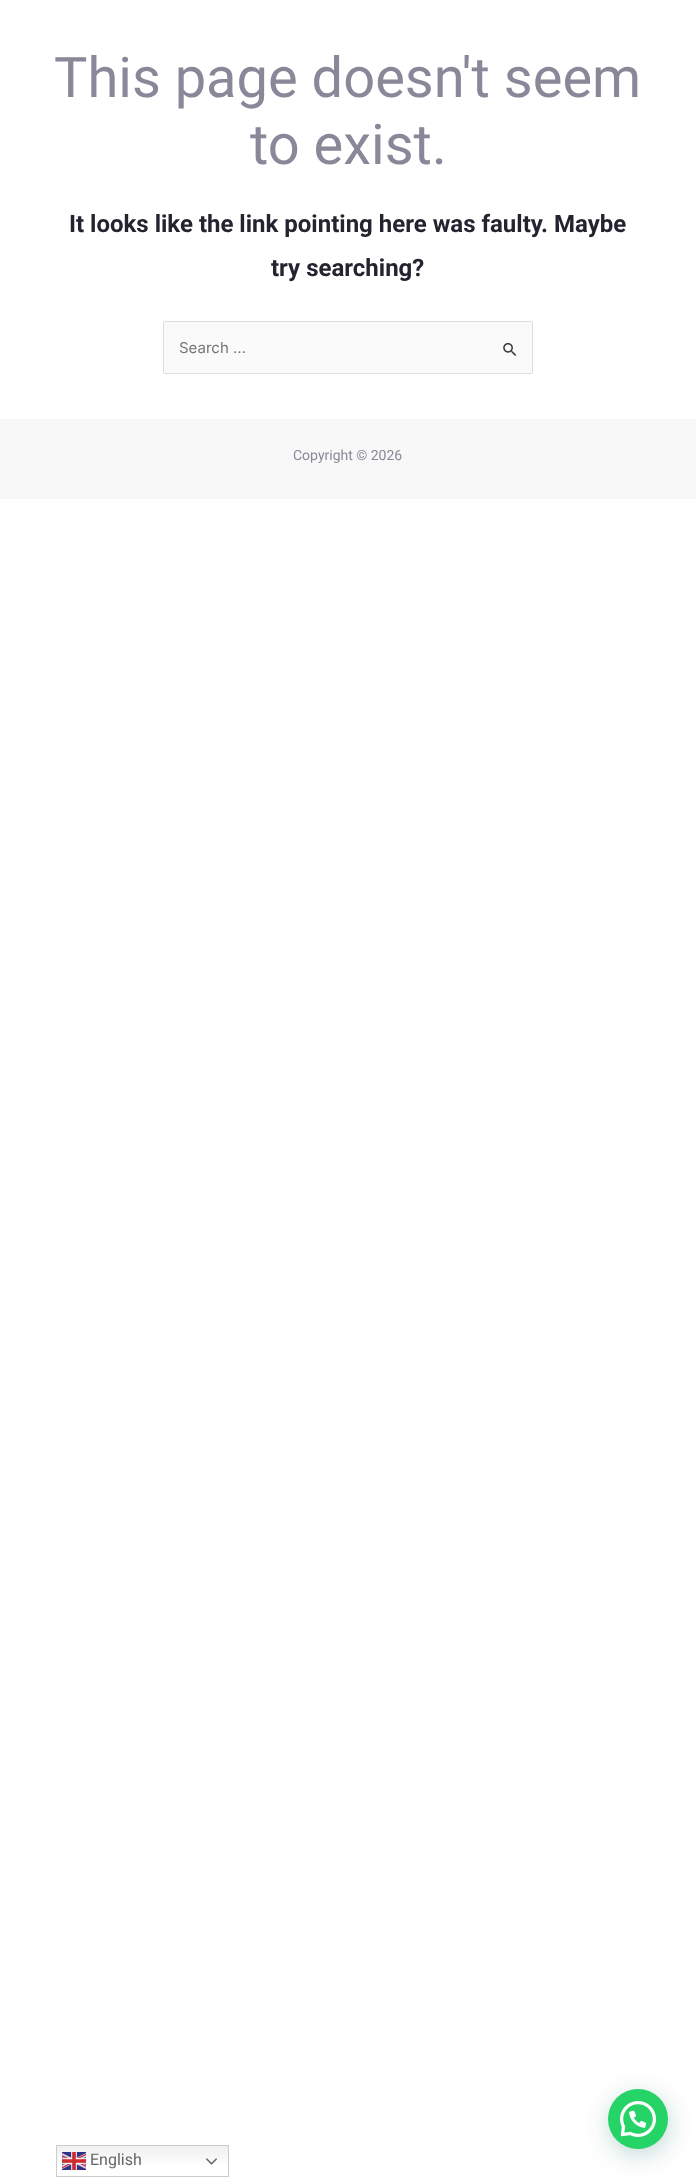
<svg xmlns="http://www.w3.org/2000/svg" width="696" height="2177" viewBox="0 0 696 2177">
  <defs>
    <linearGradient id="g1" gradientUnits="userSpaceOnUse" x1="143" y1="2145" x2="143" y2="2177"><stop offset="0" stop-color="#efefef"/><stop offset="0.7" stop-color="#ffffff"/></linearGradient>
    <filter id="blur1" x="-50%" y="-200%" width="200%" height="500%"><feGaussianBlur stdDeviation="12"/></filter>
  </defs>
  <rect width="100%" height="100%" fill="#ffffff"/>
  <text x="54" y="97" font-family="Roboto" font-size="56" fill="#8b8698">This page doesn't seem</text>
  <text x="250" y="164" font-family="Roboto" font-size="56" fill="#8b8698">to exist.</text>
  <text x="69" y="232" font-family="Roboto" font-size="24" font-weight="bold" fill="#26222f">It looks like the link pointing here was faulty. Maybe</text>
  <text x="271" y="276" font-family="Roboto" font-size="24" font-weight="bold" fill="#26222f">try searching?</text>
  <rect x="163.5" y="321.5" width="369" height="52" rx="1.5" fill="#fafafa" stroke="#dddddd"/>
  <text x="179" y="353" font-family="Inter" font-size="15" fill="#757575">Search …</text>
  <image x="503" y="342" width="13" height="14" href="img1.png"/>
  <rect x="0" y="420" width="696" height="79" fill="#f8f8f8"/>
  <rect x="0" y="419" width="696" height="1" fill="#f3f5f6"/>
  <text x="293" y="460" font-family="Roboto" font-size="14" fill="#8b8698">Copyright © 2026</text>
  <rect x="57" y="2146" width="171" height="18" fill="url(#g1)"/>
  <rect x="56.5" y="2145.5" width="172" height="31" fill="none" stroke="#cccccc"/>
  <image x="62" y="2152" width="24" height="18" href="img2.png"/>
  <text x="90" y="2165" font-family="Roboto" font-size="16" fill="#666666">English</text>
  <image x="206" y="2158" width="11" height="7" href="img3.png"/>
  <rect x="609" y="2095" width="60" height="60" rx="30" fill="#075e54" fill-opacity="0.24" filter="url(#blur1)"/>
  <circle cx="638" cy="2119" r="30" fill="#25d366"/>
  <image x="620" y="2101" width="36" height="36" href="img4.png"/>
</svg>
